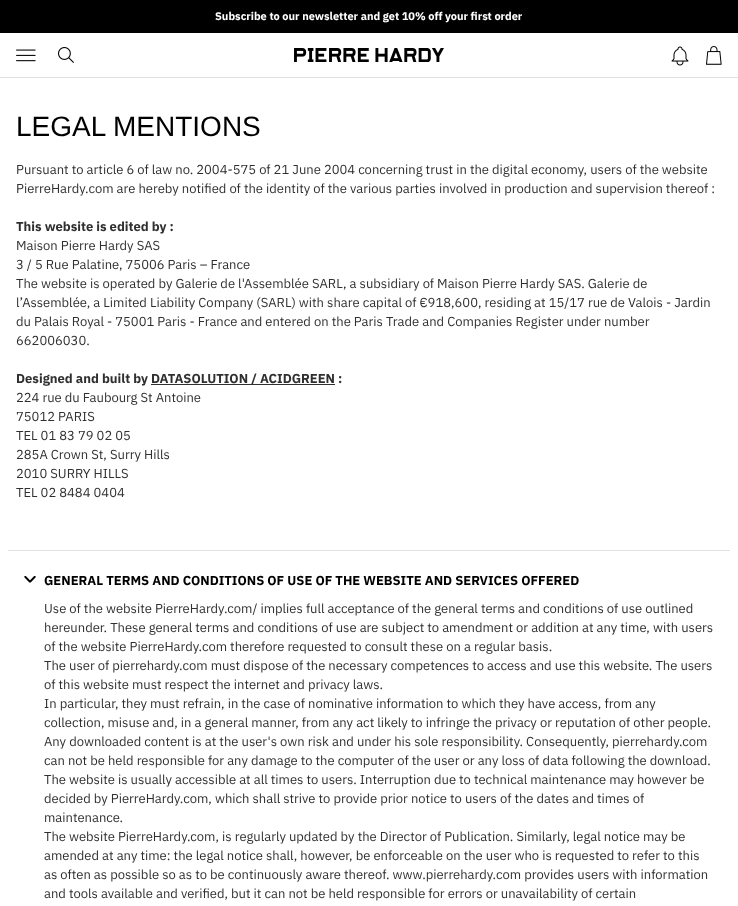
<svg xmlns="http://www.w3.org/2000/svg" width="738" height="906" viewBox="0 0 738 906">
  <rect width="100%" height="100%" fill="#ffffff"/>
  <rect x="0" y="0" width="738" height="33" fill="#000000"/>
  <text x="215" y="20" font-family="IBM Plex Sans" font-size="11" font-weight="bold" fill="#ffffff">Subscribe to our newsletter and get 10% off your first order</text>
  <rect x="0" y="77" width="738" height="1" fill="#e0e0e0"/>
  <image x="16" y="49" width="20" height="13" href="img1.png"/>
  <image x="58" y="47" width="16" height="16" href="img2.png"/>
  <image x="294" y="48" width="150" height="14" href="img3.png"/>
  <image x="671" y="46" width="18" height="20" href="img4.png"/>
  <image x="706" y="46" width="16" height="19" href="img5.png"/>
  <text x="16" y="136" font-family="Liberation Sans" font-size="28" fill="#000000">LEGAL MENTIONS</text>
  <text x="16" y="174" font-family="IBM Plex Sans" font-size="13" fill="#303030">Pursuant to article 6 of law no. 2004-575 of 21 June 2004 concerning trust in the digital economy, users of the website</text>
  <text x="16" y="193" font-family="IBM Plex Sans" font-size="13" fill="#303030">PierreHardy.com are hereby notified of the identity of the various parties involved in production and supervision thereof :</text>
  <text x="16" y="231" font-family="IBM Plex Sans" font-size="13" font-weight="bold" fill="#303030">This website is edited by :</text>
  <text x="16" y="250" font-family="IBM Plex Sans" font-size="13" fill="#303030">Maison Pierre Hardy SAS</text>
  <text x="16" y="269" font-family="IBM Plex Sans" font-size="13" fill="#303030">3 / 5 Rue Palatine, 75006 Paris – France</text>
  <text x="16" y="288" font-family="IBM Plex Sans" font-size="13" fill="#303030">The website is operated by Galerie de l'Assemblée SARL, a subsidiary of Maison Pierre Hardy SAS. Galerie de</text>
  <text x="16" y="307" font-family="IBM Plex Sans" font-size="13" fill="#303030">l’Assemblée, a Limited Liability Company (SARL) with share capital of €918,600, residing at 15/17 rue de Valois - Jardin</text>
  <text x="16" y="326" font-family="IBM Plex Sans" font-size="13" fill="#303030">du Palais Royal - 75001 Paris - France and entered on the Paris Trade and Companies Register under number</text>
  <text x="16" y="345" font-family="IBM Plex Sans" font-size="13" fill="#303030">662006030.</text>
  <text x="16" y="383" font-family="IBM Plex Sans" font-size="13" font-weight="bold" fill="#303030">Designed and built by DATASOLUTION</text>
  <rect x="151" y="384" width="184" height="1" fill="#303030"/>
  <text x="251" y="383" font-family="IBM Plex Sans" font-size="13" font-weight="bold" fill="#303030">/ ACIDGREEN :</text>
  <text x="16" y="402" font-family="IBM Plex Sans" font-size="13" fill="#303030">224 rue du Faubourg St Antoine</text>
  <text x="16" y="421" font-family="IBM Plex Sans" font-size="13" fill="#303030">75012 PARIS</text>
  <text x="16" y="440" font-family="IBM Plex Sans" font-size="13" fill="#303030">TEL 01 83 79 02 05</text>
  <text x="16" y="459" font-family="IBM Plex Sans" font-size="13" fill="#303030">285A Crown St, Surry Hills</text>
  <text x="16" y="478" font-family="IBM Plex Sans" font-size="13" fill="#303030">2010 SURRY HILLS</text>
  <text x="16" y="497" font-family="IBM Plex Sans" font-size="13" fill="#303030">TEL 02 8484 0404</text>
  <rect x="8" y="550" width="722" height="1" fill="#e0e0e0"/>
  <image x="24" y="576" width="12" height="7" href="img6.png"/>
  <text x="44" y="585" font-family="IBM Plex Sans" font-size="13" font-weight="bold" fill="#000000">GENERAL TERMS AND CONDITIONS OF USE OF THE WEBSITE AND SERVICES OFFERED</text>
  <text x="44" y="613" font-family="IBM Plex Sans" font-size="13" fill="#303030">Use of the website PierreHardy.com/ implies full acceptance of the general terms and conditions of use outlined</text>
  <text x="44" y="632" font-family="IBM Plex Sans" font-size="13" fill="#303030">hereunder. These general terms and conditions of use are subject to amendment or addition at any time, with users</text>
  <text x="44" y="651" font-family="IBM Plex Sans" font-size="13" fill="#303030">of the website PierreHardy.com therefore requested to consult these on a regular basis.</text>
  <text x="44" y="670" font-family="IBM Plex Sans" font-size="13" fill="#303030">The user of pierrehardy.com must dispose of the necessary competences to access and use this website. The users</text>
  <text x="44" y="689" font-family="IBM Plex Sans" font-size="13" fill="#303030">of this website must respect the internet and privacy laws.</text>
  <text x="44" y="708" font-family="IBM Plex Sans" font-size="13" fill="#303030">In particular, they must refrain, in the case of nominative information to which they have access, from any</text>
  <text x="44" y="727" font-family="IBM Plex Sans" font-size="13" fill="#303030">collection, misuse and, in a general manner, from any act likely to infringe the privacy or reputation of other people.</text>
  <text x="44" y="746" font-family="IBM Plex Sans" font-size="13" fill="#303030">Any downloaded content is at the user's own risk and under his sole responsibility. Consequently, pierrehardy.com</text>
  <text x="44" y="765" font-family="IBM Plex Sans" font-size="13" fill="#303030">can not be held responsible for any damage to the computer of the user or any loss of data following the download.</text>
  <text x="44" y="784" font-family="IBM Plex Sans" font-size="13" fill="#303030">The website is usually accessible at all times to users. Interruption due to technical maintenance may however be</text>
  <text x="44" y="803" font-family="IBM Plex Sans" font-size="13" fill="#303030">decided by PierreHardy.com, which shall strive to provide prior notice to users of the dates and times of</text>
  <text x="44" y="822" font-family="IBM Plex Sans" font-size="13" fill="#303030">maintenance.</text>
  <text x="44" y="841" font-family="IBM Plex Sans" font-size="13" fill="#303030">The website PierreHardy.com, is regularly updated by the Director of Publication. Similarly, legal notice may be</text>
  <text x="44" y="860" font-family="IBM Plex Sans" font-size="13" fill="#303030">amended at any time: the legal notice shall, however, be enforceable on the user who is requested to refer to this</text>
  <text x="44" y="879" font-family="IBM Plex Sans" font-size="13" fill="#303030">as often as possible so as to be continuously aware thereof. www.pierrehardy.com provides users with information</text>
  <text x="44" y="898" font-family="IBM Plex Sans" font-size="13" fill="#303030">and tools available and verified, but it can not be held responsible for errors or unavailability of certain</text>
</svg>
